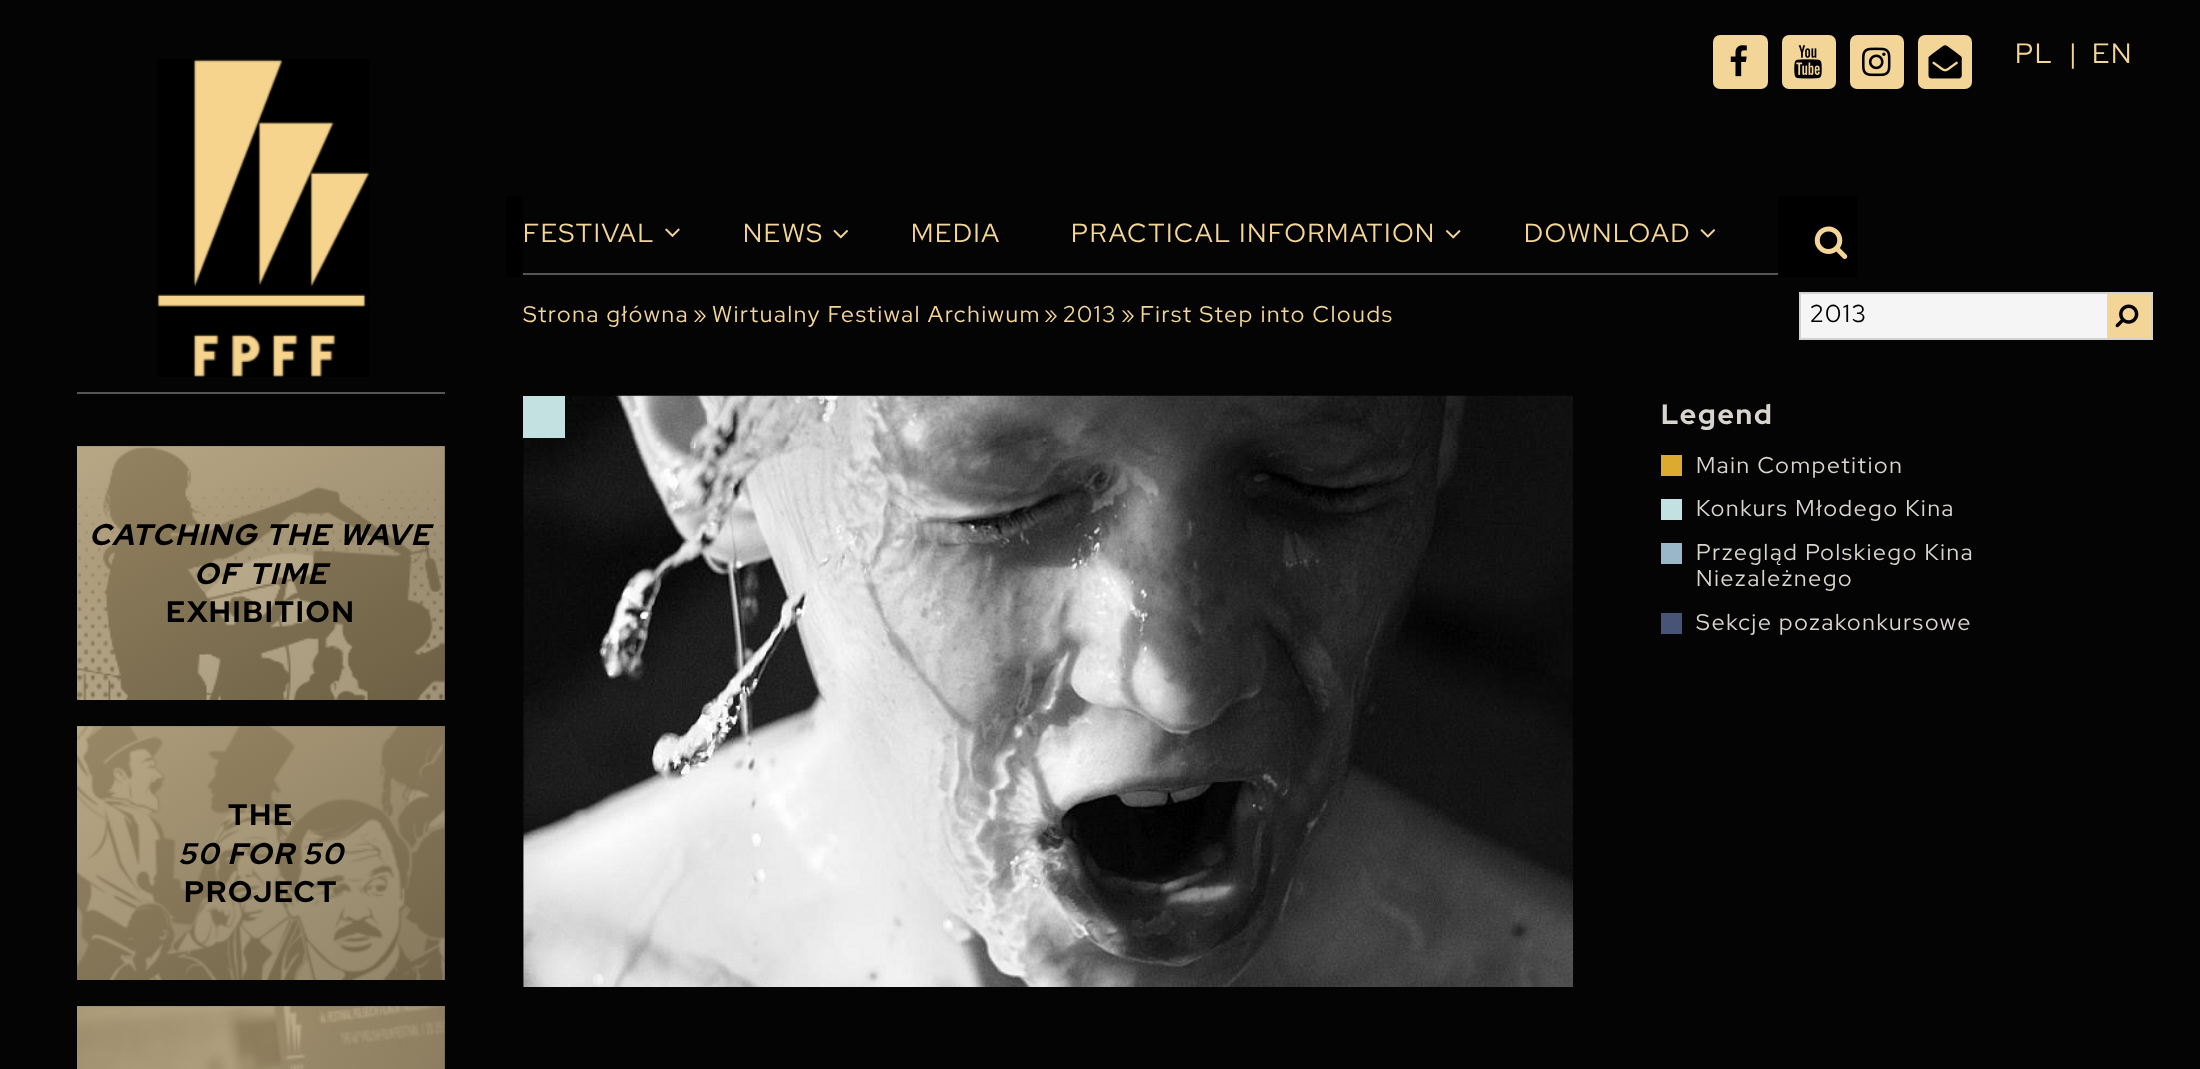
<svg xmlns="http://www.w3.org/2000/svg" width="2200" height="1069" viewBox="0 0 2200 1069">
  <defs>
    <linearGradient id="g1" gradientUnits="userSpaceOnUse" x1="362" y1="748" x2="160" y2="398"><stop offset="0" stop-color="#aa9361" stop-opacity="0.55"/><stop offset="1" stop-color="#f3d597" stop-opacity="0.55"/></linearGradient>
    <linearGradient id="g2" gradientUnits="userSpaceOnUse" x1="362" y1="1028" x2="160" y2="678"><stop offset="0" stop-color="#aa9361" stop-opacity="0.55"/><stop offset="1" stop-color="#f3d597" stop-opacity="0.55"/></linearGradient>
    <linearGradient id="g3" gradientUnits="userSpaceOnUse" x1="362" y1="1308" x2="160" y2="958"><stop offset="0" stop-color="#aa9361" stop-opacity="0.55"/><stop offset="1" stop-color="#f3d597" stop-opacity="0.55"/></linearGradient>
  </defs>
  <rect width="100%" height="100%" fill="#040404"/>
  <rect x="1713" y="35" width="55" height="54" rx="7" fill="#f3d597"/>
  <image x="1730" y="45" width="17" height="32" href="img1.png"/>
  <rect x="1782" y="35" width="54" height="54" rx="7" fill="#f3d597"/>
  <image x="1794" y="45" width="28" height="34" href="img2.png"/>
  <rect x="1850" y="35" width="54" height="54" rx="7" fill="#f3d597"/>
  <image x="1862" y="47" width="29" height="30" href="img3.png"/>
  <rect x="1918" y="35" width="54" height="54" rx="7" fill="#f3d597"/>
  <image x="1928" y="45" width="34" height="34" href="img4.png"/>
  <text x="2015" y="63" font-family="Red Hat Display" font-size="28" letter-spacing="1.75" fill="#f3d597">PL</text>
  <text x="2069" y="63" font-family="Red Hat Display" font-size="28" letter-spacing="1.75" fill="#f3d597">|</text>
  <text x="2092" y="63" font-family="Red Hat Display" font-size="28" letter-spacing="1.75" fill="#f3d597">EN</text>
  <rect x="506" y="196" width="1351" height="81" fill="#000000"/>
  <rect x="523" y="196" width="1255" height="81" fill="#040404"/>
  <text x="523" y="242" font-family="Red Hat Display" font-size="26.25" letter-spacing="1.75" fill="#f3d597">FESTIVAL</text>
  <image x="665" y="228" width="15" height="9" href="img5.png"/>
  <text x="743" y="242" font-family="Red Hat Display" font-size="26.25" letter-spacing="1.75" fill="#f3d597">NEWS</text>
  <image x="833" y="229" width="16" height="10" href="img6.png"/>
  <text x="911" y="242" font-family="Red Hat Display" font-size="26.25" letter-spacing="1.75" fill="#f3d597">MEDIA</text>
  <text x="1071" y="242" font-family="Red Hat Display" font-size="26.25" letter-spacing="1.75" fill="#f3d597">PRACTICAL INFORMATION</text>
  <image x="1445" y="230" width="16" height="9" href="img7.png"/>
  <text x="1524" y="242" font-family="Red Hat Display" font-size="26.25" letter-spacing="1.75" fill="#f3d597">DOWNLOAD</text>
  <image x="1700" y="229" width="16" height="9" href="img8.png"/>
  <rect x="523" y="273" width="1255" height="2" fill="#555555"/>
  <image x="1814" y="226" width="34" height="33" href="img9.png"/>
  <text x="523" y="322" font-family="Red Hat Display" font-size="22.75" letter-spacing="1.75" fill="#f3d597">Strona główna</text>
  <text x="693" y="322" font-family="Red Hat Display" font-size="22.75" letter-spacing="1.75" fill="#f3d597">»</text>
  <text x="712" y="322" font-family="Red Hat Display" font-size="22.75" letter-spacing="1.75" fill="#f3d597">Wirtualny Festiwal Archiwum</text>
  <text x="1044" y="322" font-family="Red Hat Display" font-size="22.75" letter-spacing="1.75" fill="#f3d597">»</text>
  <text x="1063" y="322" font-family="Red Hat Display" font-size="22.75" letter-spacing="1.75" fill="#f3d597">2013</text>
  <text x="1121" y="322" font-family="Red Hat Display" font-size="22.75" letter-spacing="1.75" fill="#f3d597">»</text>
  <text x="1140" y="322" font-family="Red Hat Display" font-size="22.75" letter-spacing="1.75" fill="#f3d597">First Step into Clouds</text>
  <rect x="1800" y="293" width="352" height="46" fill="none" stroke="#d2d2d2" stroke-width="2"/>
  <rect x="1801" y="294" width="306" height="44" fill="#f5f5f5"/>
  <text x="1810" y="322" font-family="Red Hat Display" font-size="24.5" letter-spacing="1.75" fill="#000000">2013</text>
  <rect x="2107" y="294" width="44" height="44" fill="#f3d597"/>
  <image x="2115" y="304" width="24" height="24" href="img10.png"/>
  <image x="523" y="395" width="1051" height="592" href="img11.png"/>
  <rect x="523" y="396" width="42" height="42" fill="#c3e1e1"/>
  <text x="1661" y="424" font-family="Red Hat Display" font-size="28" font-weight="bold" letter-spacing="1.75" fill="#d8d5ce">Legend</text>
  <rect x="1661" y="455" width="21" height="21" fill="#dbaa2f"/>
  <text x="1696" y="473" font-family="Red Hat Display" font-size="22.75" letter-spacing="1.75" fill="#d8d5ce">Main Competition</text>
  <rect x="1661" y="499" width="21" height="21" fill="#c3e1e1"/>
  <text x="1696" y="516" font-family="Red Hat Display" font-size="22.75" letter-spacing="1.75" fill="#d8d5ce">Konkurs Młodego Kina</text>
  <rect x="1661" y="543" width="21" height="21" fill="#99b7c8"/>
  <text x="1696" y="560" font-family="Red Hat Display" font-size="22.75" letter-spacing="1.75" fill="#d8d5ce">Przegląd Polskiego Kina</text>
  <text x="1696" y="586" font-family="Red Hat Display" font-size="22.75" letter-spacing="1.75" fill="#d8d5ce">Niezależnego</text>
  <rect x="1661" y="613" width="21" height="21" fill="#475477"/>
  <text x="1696" y="630" font-family="Red Hat Display" font-size="22.75" letter-spacing="1.75" fill="#d8d5ce">Sekcje pozakonkursowe</text>
  <image x="157" y="59" width="213" height="318" href="img12.png"/>
  <rect x="77" y="392" width="368" height="2" fill="#555555"/>
  <image x="77" y="446" width="368" height="254" href="img13.png"/>
  <rect x="77" y="446" width="368" height="254" fill="url(#g1)"/>
  <text x="89" y="545" font-family="Red Hat Display" font-size="29.75" font-weight="bold" font-style="italic" letter-spacing="1.75" fill="#000000">CATCHING THE WAVE</text>
  <text x="194" y="584" font-family="Red Hat Display" font-size="29.75" font-weight="bold" font-style="italic" letter-spacing="1.75" fill="#000000">OF TIME</text>
  <text x="166" y="622" font-family="Red Hat Display" font-size="29.75" font-weight="bold" letter-spacing="1.75" fill="#000000">EXHIBITION</text>
  <image x="77" y="726" width="368" height="254" href="img14.png"/>
  <rect x="77" y="726" width="368" height="254" fill="url(#g2)"/>
  <text x="228" y="825" font-family="Red Hat Display" font-size="29.75" font-weight="bold" letter-spacing="1.75" fill="#000000">THE</text>
  <text x="178" y="864" font-family="Red Hat Display" font-size="29.75" font-weight="bold" font-style="italic" letter-spacing="1.75" fill="#000000">50 FOR 50</text>
  <text x="184" y="902" font-family="Red Hat Display" font-size="29.75" font-weight="bold" letter-spacing="1.75" fill="#000000">PROJECT</text>
  <image x="77" y="1006" width="368" height="63" href="img15.png"/>
  <rect x="77" y="1006" width="368" height="63" fill="url(#g3)"/>
</svg>
